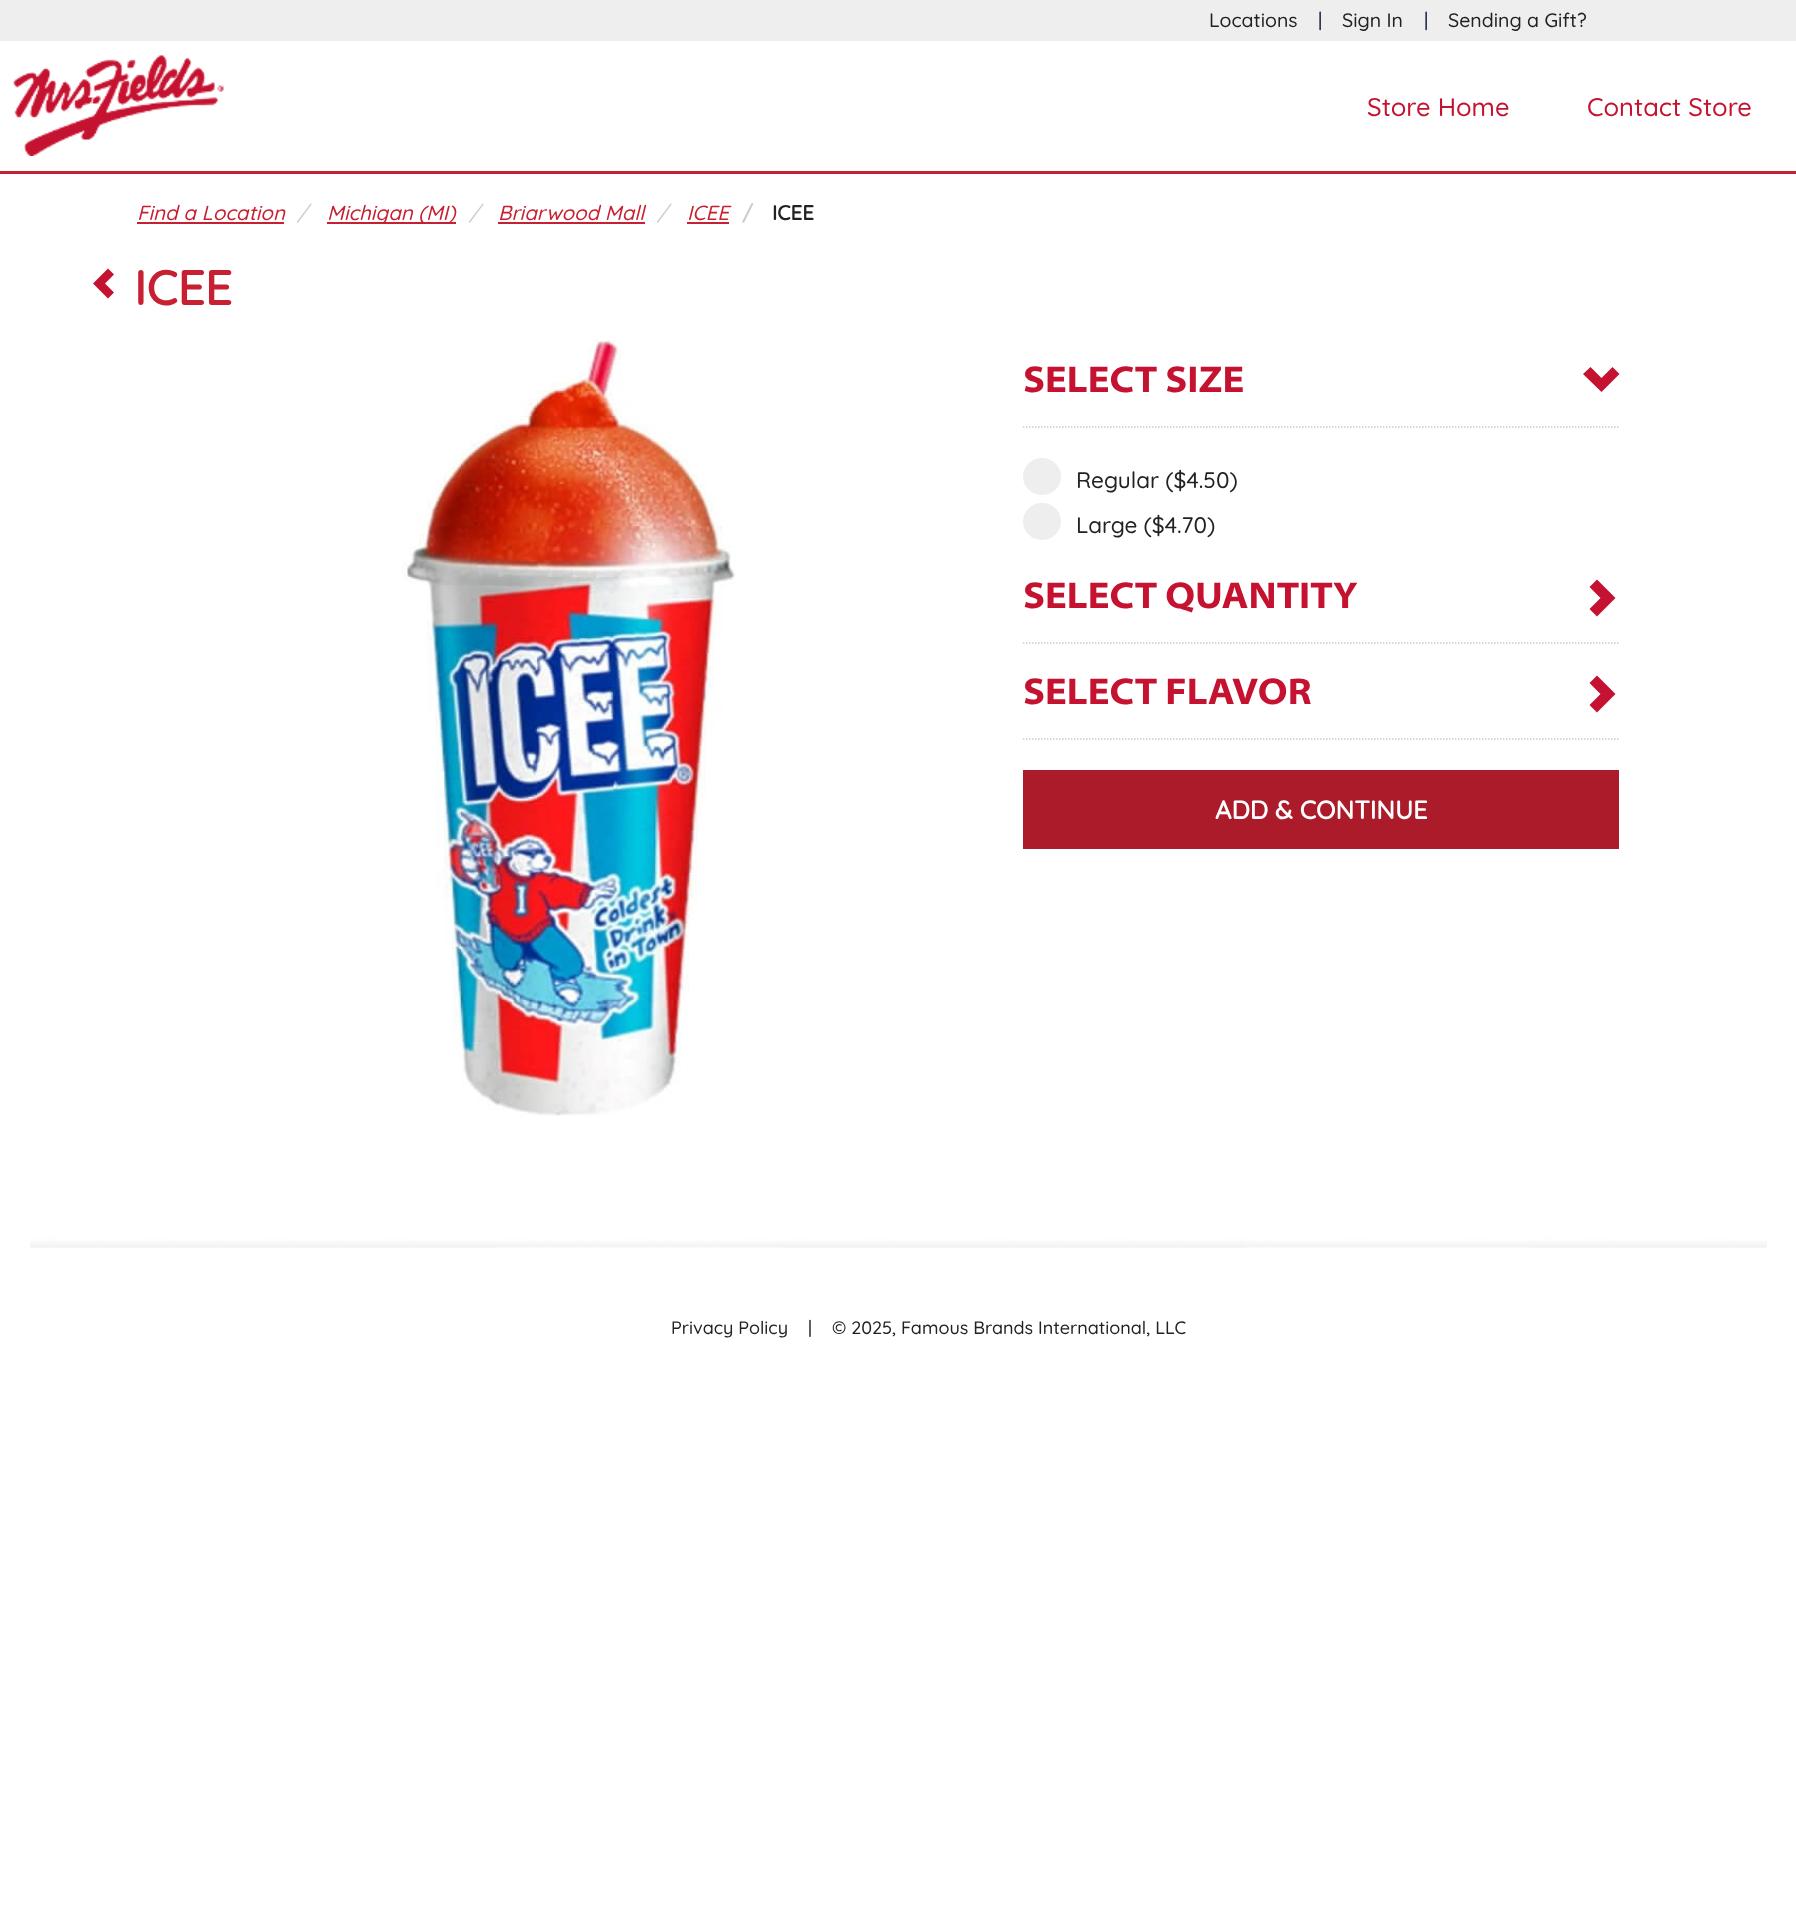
<svg xmlns="http://www.w3.org/2000/svg" width="1796" height="1905" viewBox="0 0 1796 1905">
  <rect width="100%" height="100%" fill="#ffffff"/>
  <rect x="0" y="0" width="1796" height="41" fill="#eeeeee"/>
  <text x="1209" y="27" font-family="Quicksand" font-size="19.5" font-weight="500" fill="#222222">Locations</text>
  <text x="1318" y="27" font-family="Quicksand" font-size="19.5" font-weight="500" fill="#24274c">|</text>
  <text x="1342" y="27" font-family="Quicksand" font-size="19.5" font-weight="500" fill="#222222">Sign In</text>
  <text x="1424" y="27" font-family="Quicksand" font-size="19.5" font-weight="500" fill="#24274c">|</text>
  <text x="1448" y="27" font-family="Quicksand" font-size="19.5" font-weight="500" fill="#222222">Sending a Gift?</text>
  <rect x="0" y="171" width="1796" height="3" fill="#c72032"/>
  <image x="13" y="55" width="211" height="101" href="img1.png"/>
  <text x="1367" y="116" font-family="Quicksand" font-size="25.5" font-weight="500" fill="#c41230">Store Home</text>
  <text x="1587" y="116" font-family="Quicksand" font-size="25.5" font-weight="500" fill="#c41230">Contact Store</text>
  <text x="137" y="220" font-family="Quicksand" font-size="20.5" font-weight="500" font-style="italic" fill="#c72032">Find a Location</text>
  <rect x="137" y="222" width="147" height="2" fill="#c72032"/>
  <text x="297" y="220" font-family="Quicksand" font-size="20.5" font-weight="500" font-style="italic" fill="#cccccc">/</text>
  <rect x="327" y="222" width="129" height="2" fill="#c72032"/>
  <text x="327" y="220" font-family="Quicksand" font-size="20.5" font-weight="500" font-style="italic" fill="#c72032">Michigan (MI)</text>
  <text x="469" y="220" font-family="Quicksand" font-size="20.5" font-weight="500" font-style="italic" fill="#cccccc">/</text>
  <text x="498" y="220" font-family="Quicksand" font-size="20.5" font-weight="500" font-style="italic" fill="#c72032">Briarwood Mall</text>
  <rect x="498" y="222" width="147" height="2" fill="#c72032"/>
  <text x="657" y="220" font-family="Quicksand" font-size="20.5" font-weight="500" font-style="italic" fill="#cccccc">/</text>
  <text x="687" y="220" font-family="Quicksand" font-size="20.5" font-weight="500" font-style="italic" fill="#c72032">ICEE</text>
  <rect x="687" y="222" width="42" height="2" fill="#c72032"/>
  <text x="742" y="220" font-family="Quicksand" font-size="20.5" font-weight="bold" fill="#cccccc">/</text>
  <text x="772" y="220" font-family="Quicksand" font-size="20.5" font-weight="bold" fill="#222222">ICEE</text>
  <path d="M93 283.5L108 298.5L114 292.5L105 283.5L114 274.5L108 268.5Z" fill="#c41230"/>
  <text x="134" y="305" font-family="Quicksand" font-size="48" font-weight="bold" fill="#c72032">ICEE</text>
  <image x="402" y="340" width="334" height="776" href="img2.png"/>
  <path d="M1023 427H1618.5" fill="none" stroke="#cccccc" stroke-width="1.5" stroke-dasharray="1.5 1.5"/>
  <text x="1023" y="392" font-family="Myriad" font-size="37.5" font-weight="bold" fill="#c41230">SELECT SIZE</text>
  <path d="M1583 374L1601.5 392L1619.5 374L1612.5 367L1601.5 378L1590.5 367Z" fill="#c41230"/>
  <rect x="1023" y="458" width="38" height="37" rx="18.5" fill="#eeeeee"/>
  <text x="1076" y="488" font-family="Quicksand" font-size="22.5" font-weight="500" fill="#222222">Regular ($4.50)</text>
  <rect x="1023" y="503" width="38" height="37" rx="18.5" fill="#eeeeee"/>
  <text x="1076" y="533" font-family="Quicksand" font-size="22.5" font-weight="500" fill="#222222">Large ($4.70)</text>
  <path d="M1023 643H1618.5" fill="none" stroke="#cccccc" stroke-width="1.5" stroke-dasharray="1.5 1.5"/>
  <text x="1023" y="608" font-family="Myriad" font-size="37.5" font-weight="bold" fill="#c41230">SELECT QUANTITY</text>
  <path d="M1589.5 609L1600.5 598L1589.5 587L1597 579.5L1615.5 598L1597 616.5Z" fill="#c41230"/>
  <path d="M1023 739H1618.5" fill="none" stroke="#cccccc" stroke-width="1.5" stroke-dasharray="1.5 1.5"/>
  <text x="1023" y="704" font-family="Myriad" font-size="37.5" font-weight="bold" fill="#c41230">SELECT FLAVOR</text>
  <path d="M1589.5 705L1600.5 694L1589.5 683L1597 675.5L1615.5 694L1597 712.5Z" fill="#c41230"/>
  <rect x="1023" y="770" width="596" height="79" fill="#ac1b29"/>
  <text x="1215" y="819" font-family="Quicksand" font-size="25.5" font-weight="bold" fill="#ffffff">ADD &amp; CONTINUE</text>
  <image x="30" y="1237" width="1737" height="11" href="img3.png"/>
  <text x="671" y="1334" font-family="Quicksand" font-size="18" font-weight="500" fill="#222222">Privacy Policy</text>
  <text x="808" y="1334" font-family="Quicksand" font-size="18" font-weight="500" fill="#222222">|</text>
  <text x="832" y="1334" font-family="Quicksand" font-size="18" font-weight="500" fill="#222222">© 2025, Famous Brands International, LLC</text>
</svg>
